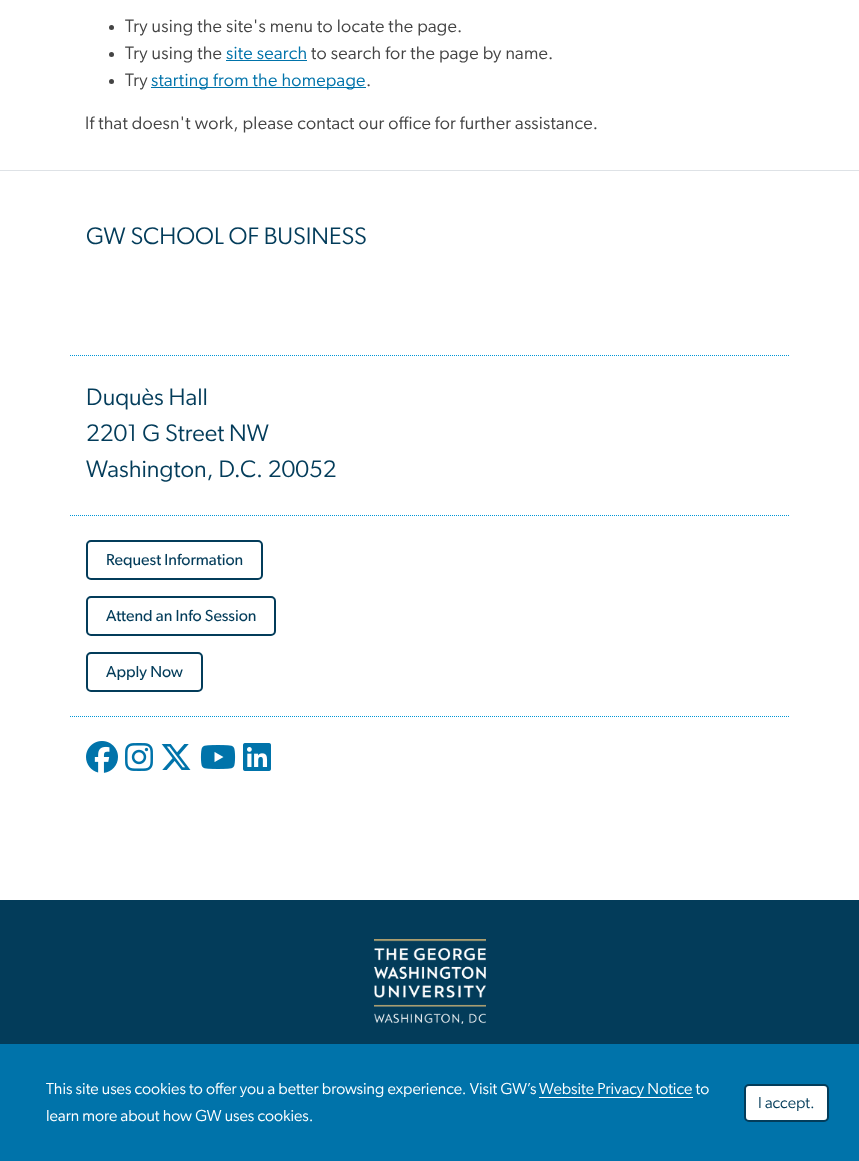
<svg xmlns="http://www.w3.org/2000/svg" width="859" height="1161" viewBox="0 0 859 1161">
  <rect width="100%" height="100%" fill="#ffffff"/>
  <circle cx="111.5" cy="27.5" r="2.5" fill="#444444"/>
  <text x="125" y="32" font-family="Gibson" font-size="18" letter-spacing="0.25" fill="#444444">Try using the site's menu to locate the page.</text>
  <circle cx="111.5" cy="54.5" r="2.5" fill="#444444"/>
  <text x="125" y="59" font-family="Gibson" font-size="18" letter-spacing="0.25" fill="#444444">Try using the</text>
  <text x="226" y="59" font-family="Gibson" font-size="18" letter-spacing="0.25" fill="#0073aa">site search</text>
  <rect x="226" y="60" width="81" height="1" fill="#0073aa"/>
  <text x="311" y="59" font-family="Gibson" font-size="18" letter-spacing="0.25" fill="#444444">to search for the page by name.</text>
  <circle cx="111.5" cy="81.5" r="2.5" fill="#444444"/>
  <text x="125" y="86" font-family="Gibson" font-size="18" letter-spacing="0.25" fill="#444444">Try</text>
  <rect x="151" y="87" width="215" height="1" fill="#0073aa"/>
  <text x="151" y="86" font-family="Gibson" font-size="18" letter-spacing="0.25" fill="#0073aa">starting from the homepage</text>
  <text x="366" y="86" font-family="Gibson" font-size="18" letter-spacing="0.25" fill="#444444">.</text>
  <text x="85" y="129" font-family="Gibson" font-size="18" letter-spacing="0.25" fill="#444444">If that doesn't work, please contact our office for further assistance.</text>
  <rect x="0" y="170" width="859" height="1" fill="#dee2e6"/>
  <text x="86" y="244" font-family="Gibson" font-size="24" fill="#033c5a">GW SCHOOL OF BUSINESS</text>
  <path d="M70 355.5H790" fill="none" stroke="#0096d6" stroke-dasharray="1 1"/>
  <text x="86" y="405" font-family="Gibson" font-size="24" fill="#033c5a">Duquès Hall</text>
  <text x="86" y="441" font-family="Gibson" font-size="24" fill="#033c5a">2201 G Street NW</text>
  <text x="86" y="477" font-family="Gibson" font-size="24" fill="#033c5a">Washington, D.C. 20052</text>
  <path d="M70 515.5H790" fill="none" stroke="#0096d6" stroke-dasharray="1 1"/>
  <rect x="87" y="541" width="175" height="38" rx="4" fill="none" stroke="#033c5a" stroke-width="2"/>
  <text x="106" y="565" font-family="'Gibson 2'" font-size="16" fill="#033c5a">Request Information</text>
  <rect x="87" y="597" width="188" height="38" rx="4" fill="none" stroke="#033c5a" stroke-width="2"/>
  <text x="106" y="621" font-family="'Gibson 2'" font-size="16" fill="#033c5a">Attend an Info Session</text>
  <rect x="87" y="653" width="115" height="38" rx="4" fill="none" stroke="#033c5a" stroke-width="2"/>
  <text x="106" y="677" font-family="'Gibson 2'" font-size="16" fill="#033c5a">Apply Now</text>
  <path d="M70 716.5H790" fill="none" stroke="#0096d6" stroke-dasharray="1 1"/>
  <image x="86" y="741" width="32" height="32" href="img1.png"/>
  <image x="125" y="743" width="28" height="28" href="img2.png"/>
  <image x="161" y="744" width="30" height="26" href="img3.png"/>
  <image x="200" y="745" width="36" height="24" href="img4.png"/>
  <image x="243" y="743" width="28" height="28" href="img5.png"/>
  <rect x="0" y="900" width="859" height="144" fill="#033c5a"/>
  <image x="374" y="939" width="112" height="85" href="img6.png"/>
  <rect x="0" y="1044" width="859" height="117" fill="#0073aa"/>
  <text x="46" y="1094" font-family="Gibson" font-size="16" fill="#ffffff">This site uses cookies to offer you a better browsing experience. Visit GW’s</text>
  <rect x="539" y="1097" width="154" height="1" fill="#ffffff"/>
  <text x="539" y="1094" font-family="Gibson" font-size="16" fill="#ffffff">Website Privacy Notice to</text>
  <text x="46" y="1121" font-family="Gibson" font-size="16" fill="#ffffff">learn more about how GW uses cookies.</text>
  <rect x="745" y="1085" width="83" height="36" rx="4" fill="#ffffff" stroke="#033c5a" stroke-width="2"/>
  <text x="758" y="1108" font-family="Gibson" font-size="16" fill="#033c5a">I accept.</text>
</svg>
